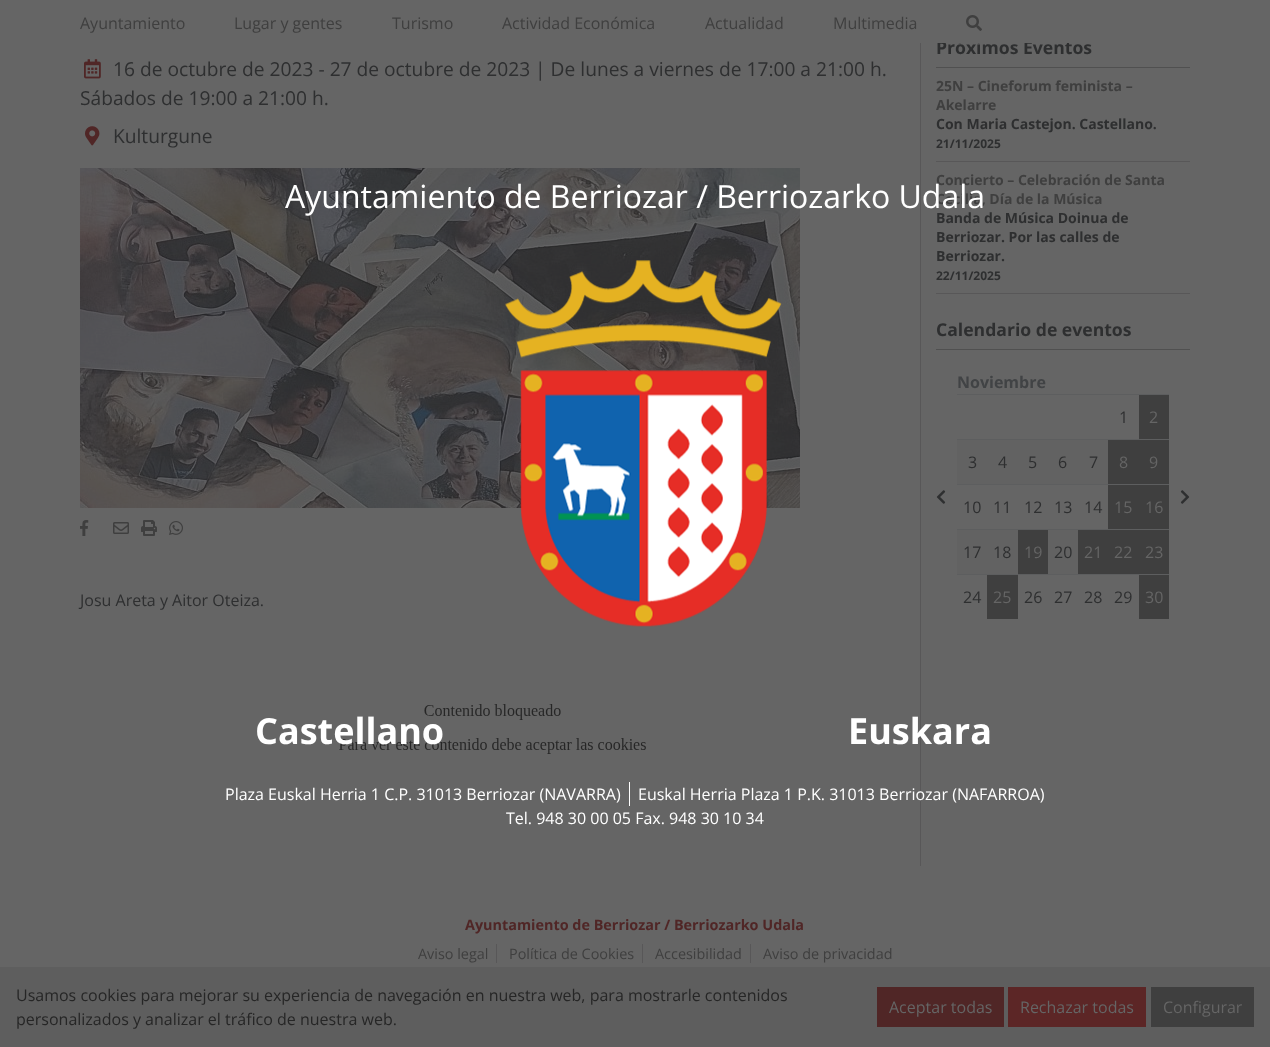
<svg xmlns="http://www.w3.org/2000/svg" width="1270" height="1047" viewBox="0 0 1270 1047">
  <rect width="100%" height="100%" fill="#656565"/>
  <text x="936" y="54" font-family="Open Sans" font-size="17.6" font-weight="bold" fill="#2e2f30">Próximos Eventos</text>
  <rect x="937" y="40" width="133" height="3" fill="#656565"/>
  <text x="80" y="29" font-family="Open Sans" font-size="16" fill="#3f3f3f">Ayuntamiento</text>
  <text x="234" y="29" font-family="Open Sans" font-size="16" fill="#3f3f3f">Lugar y gentes</text>
  <text x="392" y="29" font-family="Open Sans" font-size="16" fill="#3f3f3f">Turismo</text>
  <text x="502" y="29" font-family="Open Sans" font-size="16" fill="#3f3f3f">Actividad Económica</text>
  <text x="705" y="29" font-family="Open Sans" font-size="16" fill="#3f3f3f">Actualidad</text>
  <text x="833" y="29" font-family="Open Sans" font-size="16" fill="#3f3f3f">Multimedia</text>
  <image x="966" y="15" width="16" height="16" href="img1.png"/>
  <image x="84" y="59" width="17" height="20" href="img2.png"/>
  <text x="113" y="76" font-family="Open Sans" font-size="19.2" fill="#2e2f30">16 de octubre de 2023 - 27 de octubre de 2023 | De lunes a viernes de 17:00 a 21:00 h.</text>
  <text x="80" y="105" font-family="Open Sans" font-size="19.2" fill="#2e2f30">Sábados de 19:00 a 21:00 h.</text>
  <image x="85" y="126" width="15" height="20" href="img3.png"/>
  <text x="113" y="143" font-family="Open Sans" font-size="19.2" fill="#2e2f30">Kulturgune</text>
  <image x="80" y="168" width="720" height="340" href="img4.png"/>
  <image x="80" y="520" width="9" height="16" href="img5.png"/>
  <image x="113" y="522" width="16" height="12" href="img6.png"/>
  <image x="141" y="520" width="16" height="16" href="img7.png"/>
  <image x="169" y="521" width="14" height="14" href="img8.png"/>
  <text x="80" y="606" font-family="Open Sans" font-size="16" fill="#2e2f30">Josu Areta y Aitor Oteiza.</text>
  <image x="339" y="704" width="307" height="50" href="img9.png"/>
  <rect x="920" y="43" width="1" height="823" fill="#585758"/>
  <rect x="936" y="67" width="254" height="1" fill="#505050"/>
  <rect x="936" y="161" width="254" height="1" fill="#585758"/>
  <text x="936" y="91" font-family="Open Sans" font-size="14" font-weight="bold" fill="#3f3f3f">25N – Cineforum feminista –</text>
  <text x="936" y="110" font-family="Open Sans" font-size="14" font-weight="bold" fill="#3f3f3f">Akelarre</text>
  <text x="936" y="129" font-family="Open Sans" font-size="14" font-weight="bold" fill="#2e2f30">Con Maria Castejon. Castellano.</text>
  <text x="936" y="148" font-family="Open Sans" font-size="12" font-weight="bold" fill="#2e2f30">21/11/2025</text>
  <rect x="936" y="293" width="254" height="1" fill="#585758"/>
  <text x="936" y="185" font-family="Open Sans" font-size="14" font-weight="bold" fill="#3f3f3f">Concierto – Celebración de Santa</text>
  <text x="936" y="204" font-family="Open Sans" font-size="14" font-weight="bold" fill="#3f3f3f">Cecilia, Día de la Música</text>
  <text x="936" y="223" font-family="Open Sans" font-size="14" font-weight="bold" fill="#2e2f30">Banda de Música Doinua de</text>
  <text x="936" y="242" font-family="Open Sans" font-size="14" font-weight="bold" fill="#2e2f30">Berriozar. Por las calles de</text>
  <text x="936" y="261" font-family="Open Sans" font-size="14" font-weight="bold" fill="#2e2f30">Berriozar.</text>
  <text x="936" y="280" font-family="Open Sans" font-size="12" font-weight="bold" fill="#2e2f30">22/11/2025</text>
  <rect x="936" y="349" width="254" height="1" fill="#505050"/>
  <text x="936" y="336" font-family="Open Sans" font-size="17.6" font-weight="bold" fill="#2e2f30">Calendario de eventos</text>
  <image x="936" y="490" width="10" height="14" href="img10.png"/>
  <text x="957" y="388" font-family="Open Sans" font-size="16" font-weight="bold" fill="#414345">Noviembre</text>
  <text x="1119" y="423" font-family="Open Sans" font-size="16" fill="#2e2f30">1</text>
  <rect x="1139" y="395" width="30" height="44" fill="#3f3f3f"/>
  <rect x="957" y="394" width="212" height="1" fill="#5d5e5f"/>
  <text x="1149" y="423" font-family="Open Sans" font-size="16" fill="#656565">2</text>
  <rect x="957" y="440" width="151" height="44" fill="#626262"/>
  <text x="968" y="468" font-family="Open Sans" font-size="16" fill="#2e2f30">3</text>
  <text x="998" y="468" font-family="Open Sans" font-size="16" fill="#2e2f30">4</text>
  <text x="1028" y="468" font-family="Open Sans" font-size="16" fill="#2e2f30">5</text>
  <text x="1058" y="468" font-family="Open Sans" font-size="16" fill="#2e2f30">6</text>
  <text x="1089" y="468" font-family="Open Sans" font-size="16" fill="#2e2f30">7</text>
  <rect x="1108" y="440" width="61" height="44" fill="#3f3f3f"/>
  <text x="1119" y="468" font-family="Open Sans" font-size="16" fill="#656565">8</text>
  <rect x="957" y="439" width="212" height="1" fill="#5d5e5f"/>
  <text x="1149" y="468" font-family="Open Sans" font-size="16" fill="#656565">9</text>
  <text x="963" y="513" font-family="Open Sans" font-size="16" fill="#2e2f30">10</text>
  <text x="993" y="513" font-family="Open Sans" font-size="16" fill="#2e2f30">11</text>
  <text x="1024" y="513" font-family="Open Sans" font-size="16" fill="#2e2f30">12</text>
  <text x="1054" y="513" font-family="Open Sans" font-size="16" fill="#2e2f30">13</text>
  <text x="1084" y="513" font-family="Open Sans" font-size="16" fill="#2e2f30">14</text>
  <rect x="1108" y="485" width="61" height="44" fill="#3f3f3f"/>
  <text x="1114" y="513" font-family="Open Sans" font-size="16" fill="#656565">15</text>
  <rect x="957" y="484" width="212" height="1" fill="#5d5e5f"/>
  <text x="1145" y="513" font-family="Open Sans" font-size="16" fill="#656565">16</text>
  <rect x="957" y="530" width="61" height="44" fill="#626262"/>
  <text x="963" y="558" font-family="Open Sans" font-size="16" fill="#2e2f30">17</text>
  <text x="993" y="558" font-family="Open Sans" font-size="16" fill="#2e2f30">18</text>
  <rect x="1018" y="530" width="30" height="44" fill="#3f3f3f"/>
  <text x="1024" y="558" font-family="Open Sans" font-size="16" fill="#656565">19</text>
  <rect x="1048" y="530" width="30" height="44" fill="#626262"/>
  <text x="1054" y="558" font-family="Open Sans" font-size="16" fill="#2e2f30">20</text>
  <rect x="1078" y="530" width="91" height="44" fill="#3f3f3f"/>
  <text x="1084" y="558" font-family="Open Sans" font-size="16" fill="#656565">21</text>
  <text x="1114" y="558" font-family="Open Sans" font-size="16" fill="#656565">22</text>
  <rect x="957" y="529" width="212" height="1" fill="#5d5e5f"/>
  <text x="1145" y="558" font-family="Open Sans" font-size="16" fill="#656565">23</text>
  <text x="963" y="603" font-family="Open Sans" font-size="16" fill="#2e2f30">24</text>
  <rect x="987" y="575" width="31" height="44" fill="#3f3f3f"/>
  <text x="993" y="603" font-family="Open Sans" font-size="16" fill="#656565">25</text>
  <text x="1024" y="603" font-family="Open Sans" font-size="16" fill="#2e2f30">26</text>
  <text x="1054" y="603" font-family="Open Sans" font-size="16" fill="#2e2f30">27</text>
  <text x="1084" y="603" font-family="Open Sans" font-size="16" fill="#2e2f30">28</text>
  <text x="1114" y="603" font-family="Open Sans" font-size="16" fill="#2e2f30">29</text>
  <rect x="1139" y="575" width="30" height="44" fill="#3f3f3f"/>
  <rect x="957" y="574" width="212" height="1" fill="#5d5e5f"/>
  <text x="1145" y="603" font-family="Open Sans" font-size="16" fill="#656565">30</text>
  <image x="1180" y="490" width="10" height="14" href="img11.png"/>
  <text x="285" y="208" font-family="Open Sans" font-size="32" fill="#ffffff">Ayuntamiento de Berriozar / Berriozarko Udala</text>
  <image x="505" y="260" width="277" height="367" href="img12.png"/>
  <text x="255" y="744" font-family="Open Sans" font-size="36" font-weight="bold" fill="#ffffff">Castellano</text>
  <text x="848" y="744" font-family="Open Sans" font-size="36" font-weight="bold" fill="#ffffff">Euskara</text>
  <rect x="629" y="782" width="1" height="24" fill="#ffffff"/>
  <text x="225" y="800" font-family="Open Sans" font-size="16" fill="#ffffff">Plaza Euskal Herria 1 C.P. 31013 Berriozar (NAVARRA)</text>
  <text x="638" y="800" font-family="Open Sans" font-size="16" fill="#ffffff">Euskal Herria Plaza 1 P.K. 31013 Berriozar (NAFARROA)</text>
  <text x="506" y="824" font-family="Open Sans" font-size="16" fill="#ffffff">Tel. 948 30 00 05 Fax. 948 30 10 34</text>
  <text x="465" y="930" font-family="Open Sans" font-size="14.4" font-weight="bold" fill="#502626">Ayuntamiento de Berriozar / Berriozarko Udala</text>
  <text x="418" y="959" font-family="Open Sans" font-size="14.4" fill="#3f3f3f">Aviso legal</text>
  <rect x="496" y="944" width="1" height="19" fill="#585758"/>
  <text x="509" y="959" font-family="Open Sans" font-size="14.4" fill="#3f3f3f">Política de Cookies</text>
  <rect x="642" y="944" width="1" height="19" fill="#585758"/>
  <text x="655" y="959" font-family="Open Sans" font-size="14.4" fill="#3f3f3f">Accesibilidad</text>
  <rect x="750" y="944" width="1" height="19" fill="#585758"/>
  <text x="763" y="959" font-family="Open Sans" font-size="14.4" fill="#3f3f3f">Aviso de privacidad</text>
  <rect x="0" y="967" width="1270" height="80" fill="#5e5e5e"/>
  <text x="16" y="1001" font-family="Open Sans" font-size="16" fill="#262626">Usamos cookies para mejorar su experiencia de navegación en nuestra web, para mostrarle contenidos</text>
  <text x="16" y="1025" font-family="Open Sans" font-size="16" fill="#262626">personalizados y analizar el tráfico de nuestra web.</text>
  <rect x="877" y="987" width="127" height="40" fill="#502626"/>
  <text x="889" y="1013" font-family="Open Sans" font-size="16" fill="#656565">Aceptar todas</text>
  <rect x="1008" y="987" width="138" height="40" fill="#5c2626"/>
  <text x="1020" y="1013" font-family="Open Sans" font-size="16" fill="#656565">Rechazar todas</text>
  <rect x="1151" y="987" width="103" height="40" fill="#3f3f3f"/>
  <text x="1163" y="1013" font-family="Open Sans" font-size="16" fill="#656565">Configurar</text>
</svg>
